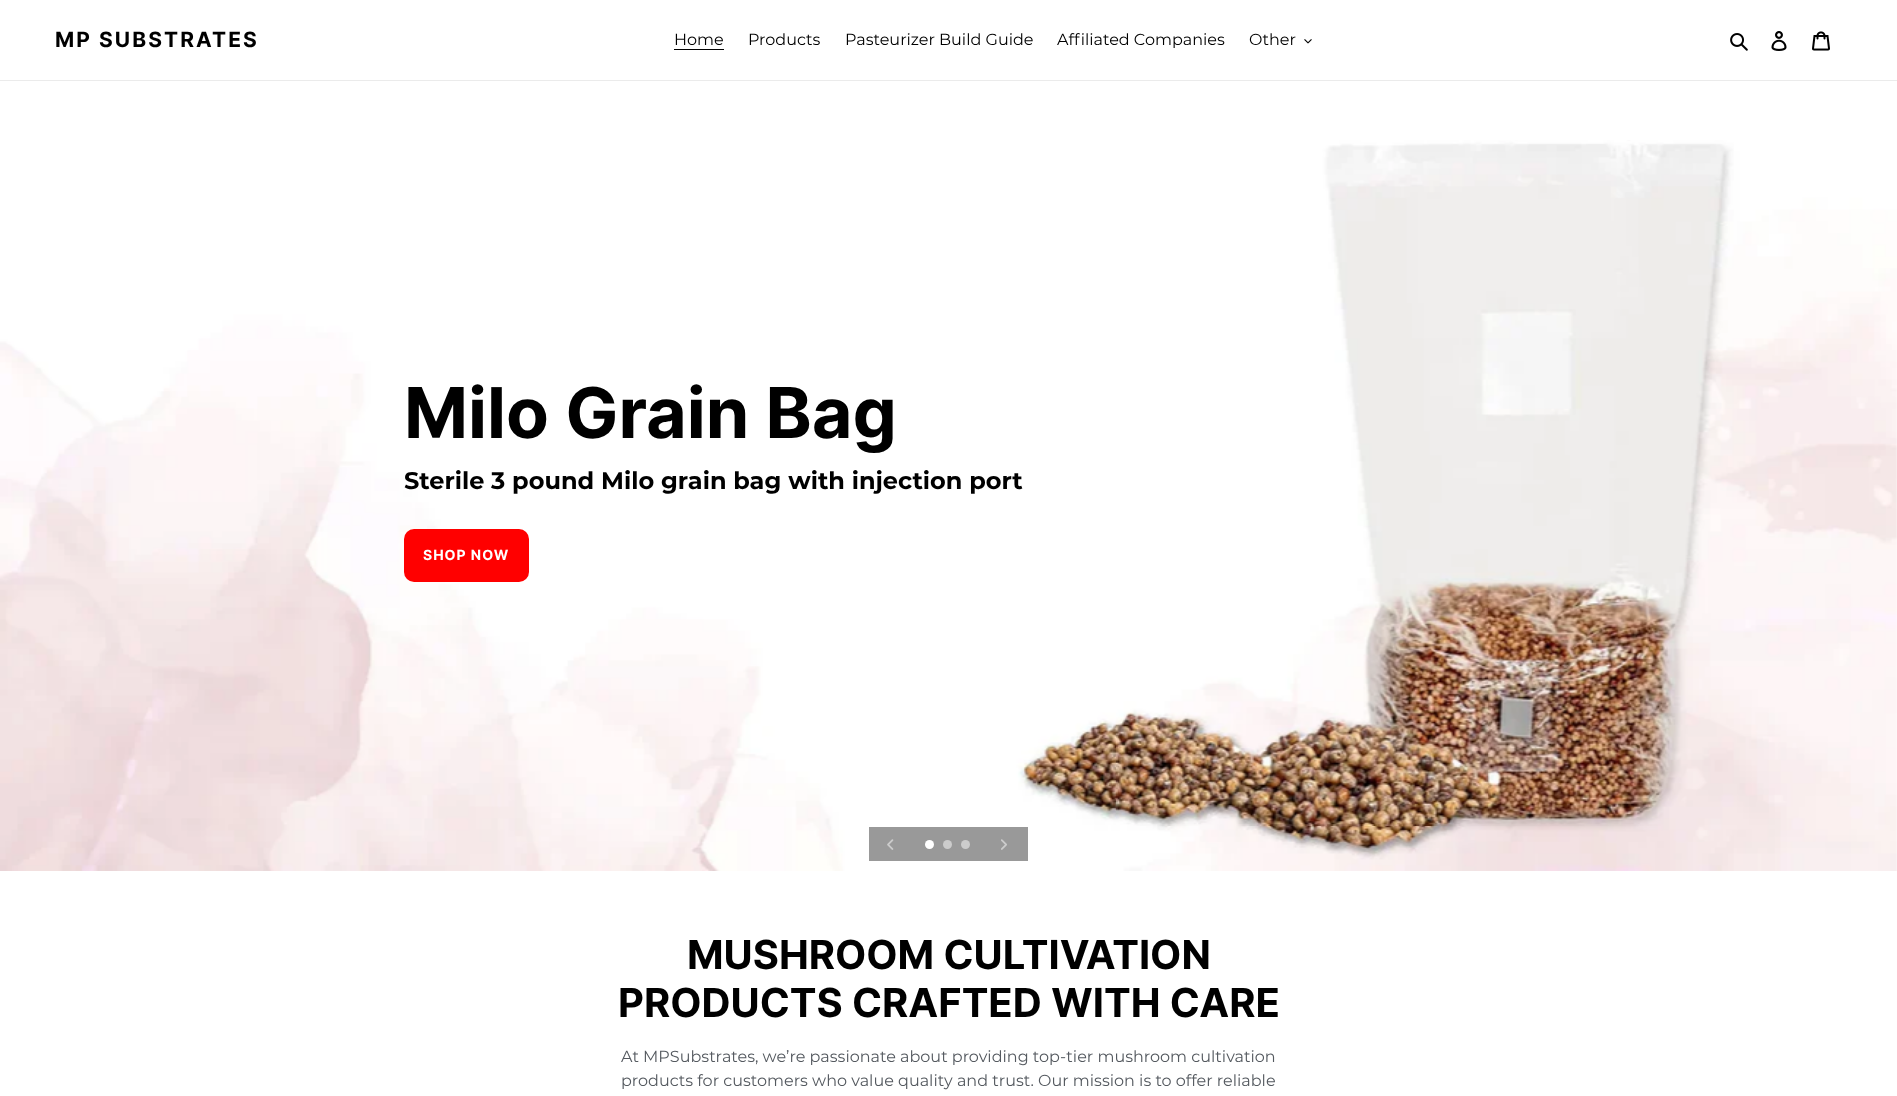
<svg xmlns="http://www.w3.org/2000/svg" width="1897" height="1096" viewBox="0 0 1897 1096">
  <rect width="100%" height="100%" fill="#ffffff"/>
  <rect x="0" y="80" width="1897" height="1" fill="#ebebeb"/>
  <text x="55" y="47" font-family="Inter" font-size="21" font-weight="bold" letter-spacing="2.1" fill="#000000">MP SUBSTRATES</text>
  <text x="674" y="45" font-family="Montserrat" font-size="16" fill="#000000">Home</text>
  <rect x="674" y="49" width="50" height="1" fill="#000000"/>
  <text x="748" y="45" font-family="Montserrat" font-size="16" fill="#000000">Products</text>
  <text x="845" y="45" font-family="Montserrat" font-size="16" fill="#000000">Pasteurizer Build Guide</text>
  <text x="1057" y="45" font-family="Montserrat" font-size="16" fill="#000000">Affiliated Companies</text>
  <text x="1249" y="45" font-family="Montserrat" font-size="16" fill="#000000">Other</text>
  <image x="1304" y="39" width="8" height="5" href="img1.png"/>
  <image x="1730" y="33" width="18" height="18" href="img2.png"/>
  <image x="1771" y="31" width="16" height="20" href="img3.png"/>
  <image x="1812" y="31" width="18" height="20" href="img4.png"/>
  <image x="0" y="140" width="1897" height="731" href="img5.png"/>
  <text x="404" y="438" font-family="Inter" font-size="70" font-weight="bold" fill="#000000">Milo Grain Bag</text>
  <text x="404" y="489" font-family="Montserrat" font-size="24" font-weight="bold" fill="#000000">Sterile 3 pound Milo grain bag with injection port</text>
  <rect x="404" y="529" width="125" height="53" rx="10" fill="#ff0000"/>
  <text x="423" y="560" font-family="Inter" font-size="14" font-weight="bold" letter-spacing="1" fill="#ffffff">SHOP NOW</text>
  <rect x="869" y="827" width="159" height="34" fill="#999999"/>
  <image x="887" y="839" width="7" height="11" href="img6.png"/>
  <circle cx="929.5" cy="844.5" r="4.5" fill="#ffffff"/>
  <circle cx="947.5" cy="844.5" r="4.5" fill="#cccccc"/>
  <circle cx="965.5" cy="844.5" r="4.5" fill="#cccccc"/>
  <image x="1001" y="839" width="6" height="11" href="img7.png"/>
  <text x="687" y="969" font-family="Inter" font-size="40" font-weight="bold" fill="#000000">MUSHROOM CULTIVATION</text>
  <text x="618" y="1017" font-family="Inter" font-size="40" font-weight="bold" fill="#000000">PRODUCTS CRAFTED WITH CARE</text>
  <text x="621" y="1062" font-family="Montserrat" font-size="16" fill="#54595f">At MPSubstrates, we’re passionate about providing top-tier mushroom cultivation</text>
  <text x="621" y="1086" font-family="Montserrat" font-size="16" fill="#54595f">products for customers who value quality and trust. Our mission is to offer reliable</text>
</svg>
